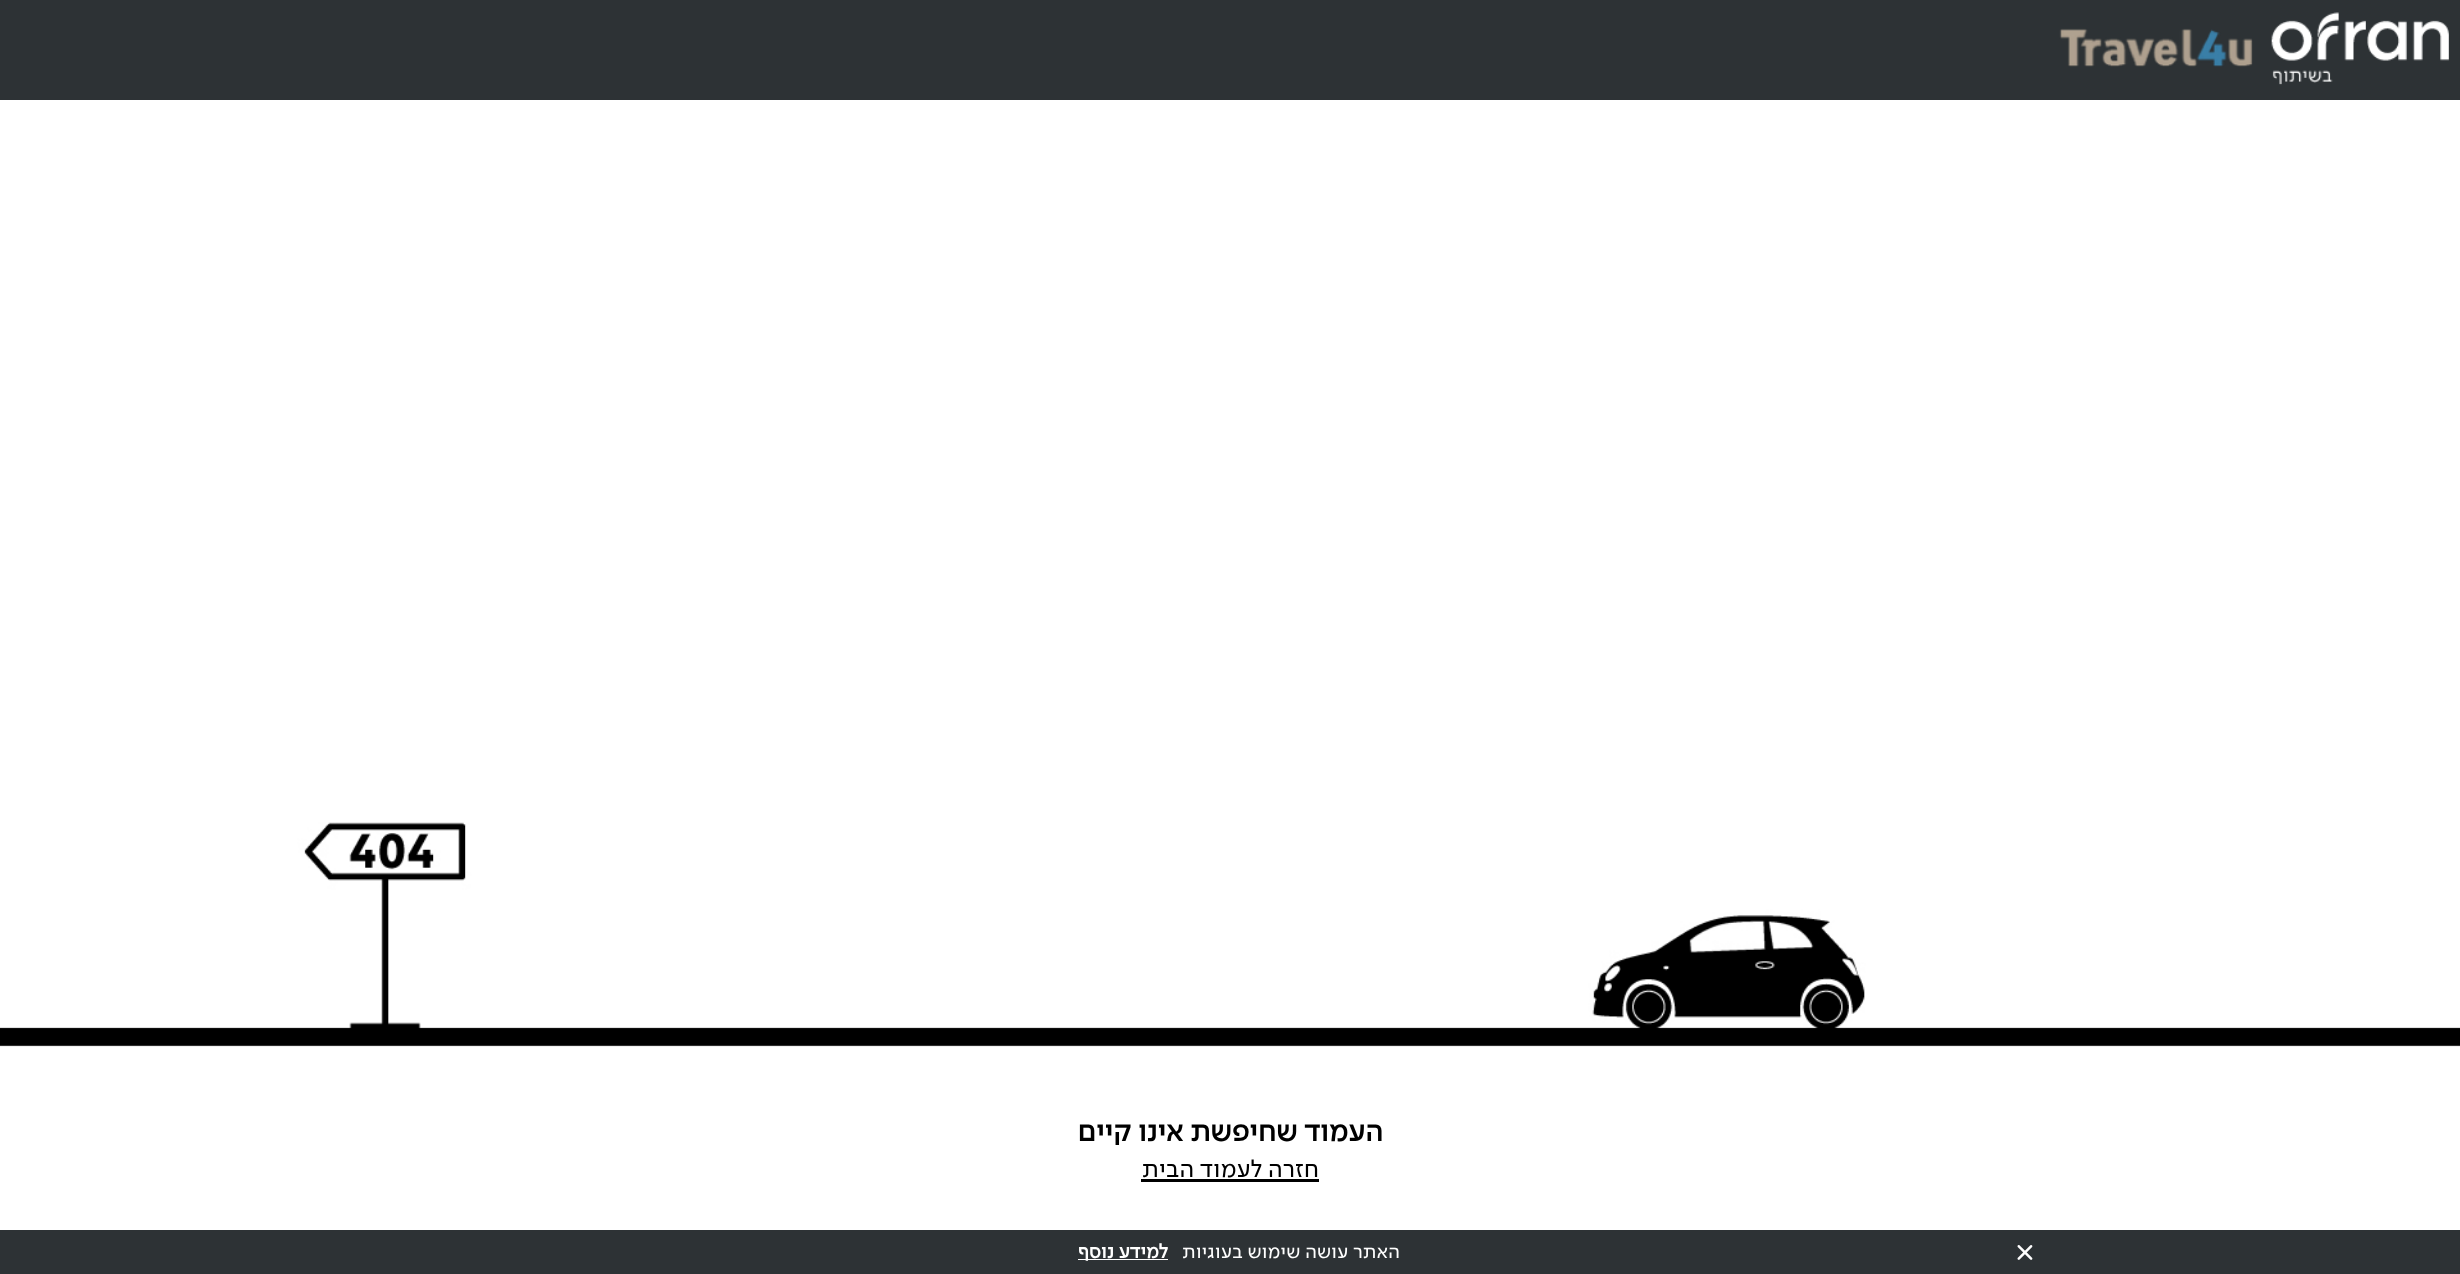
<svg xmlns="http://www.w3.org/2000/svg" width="2460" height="1274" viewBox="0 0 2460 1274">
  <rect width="100%" height="100%" fill="#ffffff"/>
  <image x="0" y="822" width="2460" height="225" href="img1.png"/>
  <text x="1383" y="1141" font-family="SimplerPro" font-size="30" font-weight="bold" direction="rtl" fill="#000000">העמוד שחיפשת אינו קיים</text>
  <text x="1319" y="1177" font-family="SimplerPro" font-size="25" direction="rtl" fill="#000000">חזרה לעמוד הבית</text>
  <rect x="1141" y="1179" width="178" height="3" fill="#000000"/>
  <rect x="0" y="0" width="2460" height="100" fill="#2d3235"/>
  <image x="2059" y="12" width="390" height="73" href="img2.png"/>
  <rect x="0" y="1230" width="2460" height="44" fill="#2d3235"/>
  <image x="2017" y="1245" width="16" height="15" href="img3.png"/>
  <text x="1400" y="1258" font-family="SimplerPro" font-size="20" direction="rtl" fill="#ffffff">האתר עושה שימוש בעוגיות</text>
  <rect x="1078" y="1259" width="90" height="1" fill="#ffffff"/>
  <text x="1168" y="1258" font-family="SimplerPro" font-size="20" font-weight="bold" direction="rtl" fill="#ffffff">למידע נוסף</text>
</svg>
